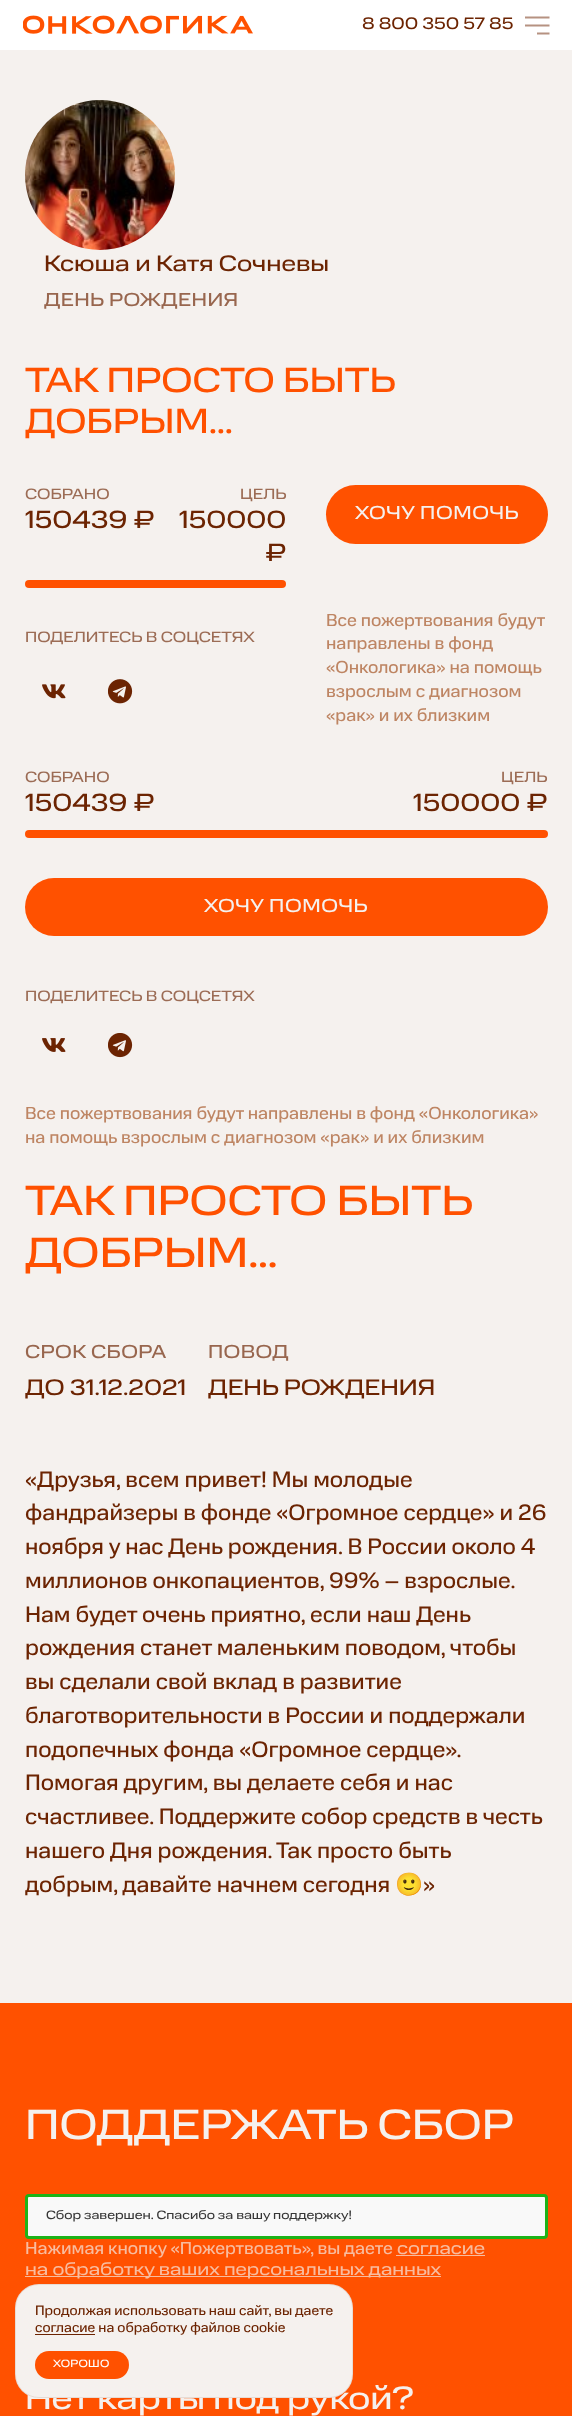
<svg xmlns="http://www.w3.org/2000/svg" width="572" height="2416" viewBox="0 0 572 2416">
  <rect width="100%" height="100%" fill="#ffffff"/>
  <image x="23" y="15" width="230" height="19" href="img1.png"/>
  <text x="362" y="29" font-family="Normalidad" font-size="16.75" fill="#6c2402">8 800 350 57 85</text>
  <path d="M525 17.5H549.5M525 25.5H549.5M537 33.5H549.5" fill="none" stroke="#b69281" stroke-width="2"/>
  <rect x="0" y="50" width="572" height="1953" fill="#f5f1ee"/>
  <image x="25" y="100" width="150" height="150" href="img2.png"/>
  <text x="44" y="271" font-family="Normalidad" font-size="22.5" fill="#6c2402">Ксюша и Катя Сочневы</text>
  <text x="44" y="306" font-family="Normalidad" font-size="18.75" letter-spacing="0.4" fill="#98664e">ДЕНЬ РОЖДЕНИЯ</text>
  <text x="25" y="392" font-family="Normalidad" font-size="35" fill="#ff5100">ТАК ПРОСТО БЫТЬ</text>
  <text x="25" y="433" font-family="Normalidad" font-size="35" fill="#ff5100">ДОБРЫМ…</text>
  <text x="25" y="499" font-family="Normalidad" font-size="15" fill="#9c6c55">СОБРАНО</text>
  <text x="240" y="499" font-family="Normalidad" font-size="15" fill="#9c6c55">ЦЕЛЬ</text>
  <text x="25" y="528" font-family="Normalidad" font-size="25" fill="#6c2402">150439 ₽</text>
  <text x="179" y="528" font-family="Normalidad" font-size="25" fill="#6c2402">150000</text>
  <text x="265" y="561" font-family="Normalidad" font-size="25" fill="#6c2402">₽</text>
  <rect x="25" y="580" width="261" height="8" rx="4" fill="#ff5100"/>
  <text x="25" y="642" font-family="Normalidad" font-size="15" fill="#9c6c55">ПОДЕЛИТЕСЬ В СОЦСЕТЯХ</text>
  <image x="42" y="684" width="24" height="15" href="img3.png"/>
  <image x="108" y="679" width="25" height="25" href="img4.png"/>
  <rect x="326" y="485" width="222" height="59" rx="29.5" fill="#ff5100"/>
  <text x="355" y="519" font-family="Normalidad" font-size="18.75" letter-spacing="0.6" fill="#f5f1ee">ХОЧУ ПОМОЧЬ</text>
  <text x="326" y="626" font-family="'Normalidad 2'" font-size="17.5" fill="#be8563">Все пожертвования будут</text>
  <text x="326" y="649" font-family="'Normalidad 2'" font-size="17.5" fill="#be8563">направлены в фонд</text>
  <text x="326" y="673" font-family="'Normalidad 2'" font-size="17.5" fill="#be8563">«Онкологика» на помощь</text>
  <text x="326" y="697" font-family="'Normalidad 2'" font-size="17.5" fill="#be8563">взрослым с диагнозом</text>
  <text x="326" y="721" font-family="'Normalidad 2'" font-size="17.5" fill="#be8563">«рак» и их близким</text>
  <text x="25" y="782" font-family="Normalidad" font-size="15" fill="#9c6c55">СОБРАНО</text>
  <text x="501" y="782" font-family="Normalidad" font-size="15" fill="#9c6c55">ЦЕЛЬ</text>
  <text x="25" y="811" font-family="Normalidad" font-size="25" fill="#6c2402">150439 ₽</text>
  <text x="413" y="811" font-family="Normalidad" font-size="25" fill="#6c2402">150000 ₽</text>
  <rect x="25" y="830" width="523" height="8" rx="4" fill="#ff5100"/>
  <rect x="25" y="878" width="523" height="58" rx="29" fill="#ff5100"/>
  <text x="204" y="912" font-family="Normalidad" font-size="18.75" letter-spacing="0.6" fill="#f5f1ee">ХОЧУ ПОМОЧЬ</text>
  <text x="25" y="1001" font-family="Normalidad" font-size="15" fill="#9c6c55">ПОДЕЛИТЕСЬ В СОЦСЕТЯХ</text>
  <image x="42" y="1038" width="24" height="14" href="img5.png"/>
  <image x="108" y="1033" width="25" height="25" href="img6.png"/>
  <text x="25" y="1119" font-family="'Normalidad 2'" font-size="17.5" fill="#be8563">Все пожертвования будут направлены в фонд «Онкологика»</text>
  <text x="25" y="1143" font-family="'Normalidad 2'" font-size="17.5" fill="#be8563">на помощь взрослым с диагнозом «рак» и их близким</text>
  <text x="25" y="1215" word-spacing="-1" font-family="Normalidad" font-size="42.5" fill="#ff5100">ТАК ПРОСТО БЫТЬ</text>
  <text x="25" y="1267" font-family="Normalidad" font-size="42.5" fill="#ff5100">ДОБРЫМ…</text>
  <text x="25" y="1358" font-family="Normalidad" font-size="18.75" letter-spacing="0.4" fill="#98664e">СРОК СБОРА</text>
  <text x="25" y="1395" font-family="Normalidad" font-size="22.5" fill="#6c2402">ДО 31.12.2021</text>
  <text x="208" y="1358" font-family="Normalidad" font-size="18.75" letter-spacing="0.4" fill="#98664e">ПОВОД</text>
  <text x="208" y="1395" font-family="Normalidad" font-size="22.5" fill="#6c2402">ДЕНЬ РОЖДЕНИЯ</text>
  <text x="25" y="1487" font-family="'Normalidad 2'" font-size="22.5" fill="#6c2402">«Друзья, всем привет! Мы молодые</text>
  <text x="25" y="1520" font-family="'Normalidad 2'" font-size="22.5" fill="#6c2402">фандрайзеры в фонде «Огромное сердце» и 26</text>
  <text x="25" y="1554" font-family="'Normalidad 2'" font-size="22.5" fill="#6c2402">ноября у нас День рождения. В России около 4</text>
  <text x="25" y="1588" font-family="'Normalidad 2'" font-size="22.5" fill="#6c2402">миллионов онкопациентов, 99% – взрослые.</text>
  <text x="25" y="1622" font-family="'Normalidad 2'" font-size="22.5" fill="#6c2402">Нам будет очень приятно, если наш День</text>
  <text x="25" y="1655" font-family="'Normalidad 2'" font-size="22.5" fill="#6c2402">рождения станет маленьким поводом, чтобы</text>
  <text x="25" y="1689" font-family="'Normalidad 2'" font-size="22.5" fill="#6c2402">вы сделали свой вклад в развитие</text>
  <text x="25" y="1723" font-family="'Normalidad 2'" font-size="22.5" fill="#6c2402">благотворительности в России и поддержали</text>
  <text x="25" y="1757" font-family="'Normalidad 2'" font-size="22.5" fill="#6c2402">подопечных фонда «Огромное сердце».</text>
  <text x="25" y="1790" font-family="'Normalidad 2'" font-size="22.5" fill="#6c2402">Помогая другим, вы делаете себя и нас</text>
  <text x="25" y="1824" font-family="'Normalidad 2'" font-size="22.5" fill="#6c2402">счастливее. Поддержите собор средств в честь</text>
  <text x="25" y="1858" font-family="'Normalidad 2'" font-size="22.5" fill="#6c2402">нашего Дня рождения.</text>
  <text x="276" y="1858" font-family="'Normalidad 2'" font-size="22.5" fill="#6c2402">Так просто быть</text>
  <text x="25" y="1892" font-family="'Normalidad 2'" font-size="22.5" fill="#6c2402">добрым, давайте начнем сегодня</text>
  <text x="395" y="1892" font-family="Noto Color Emoji" font-size="22.5" fill="#6c2402">🙂</text>
  <text x="423" y="1892" font-family="'Normalidad 2'" font-size="22.5" fill="#6c2402">»</text>
  <rect x="0" y="2003" width="572" height="413" fill="#ff5100"/>
  <text x="25" y="2139" font-family="Normalidad" font-size="42.5" fill="#f5f1ee">ПОДДЕРЖАТЬ СБОР</text>
  <rect x="26.5" y="2195.5" width="520" height="42" rx="2.5" fill="#f9f9f9" stroke="#1db318" stroke-width="3"/>
  <text x="46" y="2219" font-family="Normalidad" font-size="12.2" fill="#373737">Сбор завершен. Спасибо за вашу поддержку!</text>
  <text x="25" y="2254" font-family="'Normalidad 2'" font-size="17.5" fill="#f8bc9f">Нажимая кнопку «Пожертвовать», вы даете</text>
  <text x="397" y="2254" font-family="Normalidad" font-size="17.5" fill="#f8bc9f">согласие</text>
  <rect x="396" y="2255" width="89" height="1" fill="#f8bc9f"/>
  <rect x="25" y="2276" width="416" height="1" fill="#f8bc9f"/>
  <text x="25" y="2275" font-family="Normalidad" font-size="17.5" fill="#f8bc9f">на обработку ваших персональных данных</text>
  <text x="25" y="2409" font-family="Normalidad" font-size="32.5" fill="#f5f1ee">Нет карты под рукой?</text>
  <rect x="15" y="2284" width="338" height="114" rx="24" fill="#f5f1ee"/>
  <rect x="15.5" y="2284.5" width="337" height="113" rx="23.5" fill="none" stroke="#6c2402" stroke-opacity="0.1"/>
  <text x="35" y="2315" font-family="'Normalidad 2'" font-size="13.7" fill="#6c2402">Продолжая использовать наш сайт, вы даете</text>
  <rect x="35" y="2334" width="60" height="1" fill="#6c2402"/>
  <text x="35" y="2332" font-family="'Normalidad 2'" font-size="13.7" fill="#6c2402">согласие на обработку файлов cookie</text>
  <rect x="35" y="2351" width="94" height="28" rx="14" fill="#ff5100"/>
  <text x="53" y="2367" font-family="Normalidad" font-size="10.5" letter-spacing="0.25" fill="#ffffff">ХОРОШО</text>
</svg>
